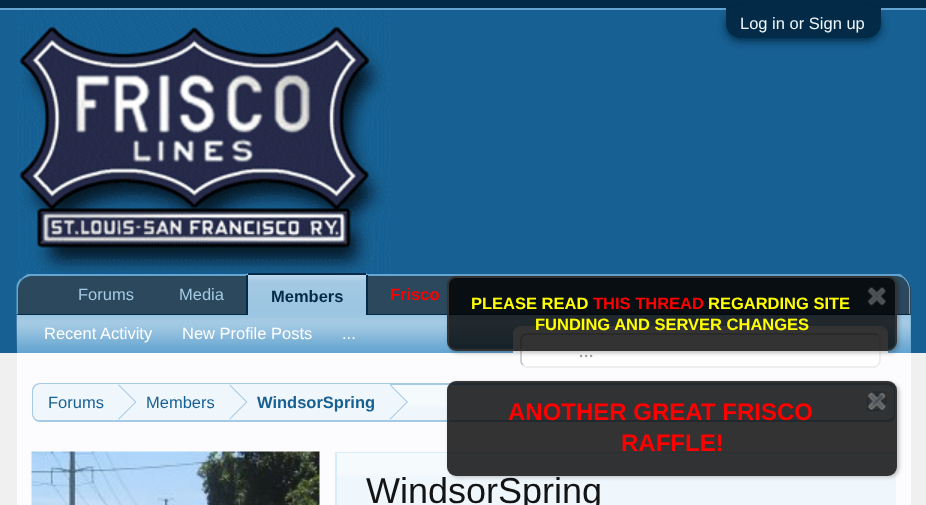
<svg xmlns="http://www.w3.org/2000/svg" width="926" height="505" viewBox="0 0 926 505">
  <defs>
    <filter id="blur1" x="-50%" y="-200%" width="200%" height="500%"><feGaussianBlur stdDeviation="4"/></filter>
    <clipPath id="clip1"><rect x="33" y="384" width="861" height="36" rx="6"/></clipPath>
    <clipPath id="clip2"><path d="M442 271H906V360H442ZM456 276H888C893 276 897 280 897 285V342C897 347 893 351 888 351H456C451 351 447 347 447 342V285C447 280 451 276 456 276Z" clip-rule="evenodd"/></clipPath>
    <filter id="blur2" x="-50%" y="-200%" width="200%" height="500%"><feGaussianBlur stdDeviation="2"/></filter>
    <clipPath id="clip3"><path d="M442 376H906V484H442ZM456 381H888C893 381 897 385 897 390V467C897 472 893 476 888 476H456C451 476 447 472 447 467V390C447 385 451 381 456 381Z" clip-rule="evenodd"/></clipPath>
  </defs>
  <rect width="100%" height="100%" fill="#f0f0f0"/>
  <rect x="0" y="0" width="926" height="8" fill="#032a46"/>
  <rect x="0" y="8" width="926" height="2" fill="#65a5d1"/>
  <rect x="0" y="10" width="926" height="343" fill="#176093"/>
  <rect x="726" y="11" width="155" height="30" rx="15" fill="#032a46" filter="url(#blur1)"/>
  <path d="M726 8H881V23C881 31.5 874.5 38 866 38H741C732.5 38 726 31.5 726 23Z" fill="#032a46"/>
  <text x="740" y="29" font-family="Liberation Sans" font-size="16.5" fill="#f0f7fc">Log in or Sign up</text>
  <image x="17" y="11" width="374" height="265" href="img1.png"/>
  <path d="M32 275H896C904.5 275 911 281.5 911 290V315H17V290C17 281.5 23.5 275 32 275Z" fill="#2b485c"/>
  <path d="M32 276C28 276 24 278 22 280L21 279C23 277 25 275 28 274H900C902 275 904 277 906 279L905 280C903 277 899 276 896 276Z" fill="#65a5d1"/>
  <path d="M906 279C908.5 281.5 910 285.5 910 290V314.5L909 313.5V290C909 286 907.5 282.5 905 280Z" fill="#65a5d1"/>
  <path d="M16 315H910V314H909H18Z" fill="#032a46"/>
  <path d="M16.5 315V286C17 283 18.5 280.5 20.5 278.5L22 280C19.5 282.5 18 286 18 290V313.5Z" fill="#65a5d1"/>
  <text x="78" y="300" font-family="Liberation Sans" font-size="16.5" fill="#a5cae4">Forums</text>
  <text x="179" y="300" font-family="Liberation Sans" font-size="16.5" fill="#a5cae4">Media</text>
  <text x="390" y="300" font-family="Liberation Sans" font-size="16.5" font-weight="bold" fill="#ff0000">Frisco</text>
  <path d="M249 273H365C366.5 273 368 274.5 368 276V315H246V276C246 274.5 247.5 273 249 273Z" fill="#65a5d1"/>
  <image x="246" y="274" width="122" height="41" href="img2.png"/>
  <rect x="248" y="273" width="118" height="2" fill="#032a46"/>
  <rect x="366" y="275" width="2" height="40" fill="#032a46"/>
  <rect x="246" y="275" width="2" height="40" fill="#032a46"/>
  <text x="271" y="302" font-family="Liberation Sans" font-size="16.5" font-weight="bold" fill="#032a46">Members</text>
  <rect x="17" y="315" width="894" height="38" fill="#65a5d1"/>
  <image x="16" y="315" width="895" height="35" href="img3.png"/>
  <text x="44" y="339" font-family="Liberation Sans" font-size="16.5" fill="#ffffff">Recent Activity</text>
  <text x="182" y="339" font-family="Liberation Sans" font-size="16.5" fill="#ffffff">New Profile Posts</text>
  <text x="342" y="339" font-family="Liberation Sans" font-size="16.5" fill="#ffffff">...</text>
  <rect x="17" y="353" width="894" height="152" fill="#fcfcff"/>
  <rect x="513" y="326" width="375" height="42" rx="8" fill="#fcfcff"/>
  <rect x="513" y="333" width="375" height="1" fill="#fcfcff"/>
  <rect x="521" y="333" width="360" height="35" rx="6" fill="#ffffff"/>
  <path d="M878 335.5C879 336.5 880 337.5 880 339V361.5C880 363 879 364 878 365C877 366 876 367 874.5 367H526.5C525 367 524 366 523 365" fill="none" stroke="#e9e9e9" stroke-width="1.5"/>
  <path d="M523 365C522 364 521 363 521 361.5V339C521 337.5 522 336.5 523 335.5C524 334.5 525 334 526.5 334H874.5C876 334 877 334.5 878 335.5" fill="none" stroke="#c0c0c0" stroke-width="1.5"/>
  <text x="579" y="357" font-family="Carlito" font-size="20" font-style="italic" fill="#a0a0a0">...</text>
  <rect x="32" y="383" width="864" height="39" rx="8" fill="#f0f7fc"/>
  <image x="32" y="384" width="863" height="23" href="img4.png"/>
  <rect x="33" y="384" width="862" height="37" rx="7" fill="none" stroke="#a5cae4" stroke-width="2"/>
  <g clip-path="url(#clip1)">
    <path d="M41 384H119V422H41C36.5 422 33 418.5 33 414V392C33 387.5 36.5 384 41 384Z" fill="#f0f7fc"/>
  </g>
  <text x="48" y="408" font-family="Liberation Sans" font-size="16.5" fill="#176093">Forums</text>
  <rect x="119" y="384" width="271" height="23" fill="#f0f7fc"/>
  <path d="M118.5 420V384L136.5 402Z" fill="#a5cae4"/>
  <path d="M117 420V384L135 402Z" fill="#f0f7fc"/>
  <text x="146" y="408" font-family="Liberation Sans" font-size="16.5" fill="#176093">Members</text>
  <path d="M229.5 420V384L247.5 402Z" fill="#a5cae4"/>
  <path d="M228 420V384L246 402Z" fill="#f0f7fc"/>
  <text x="257" y="408" font-family="Liberation Sans" font-size="16.5" font-weight="bold" fill="#176093">WindsorSpring</text>
  <path d="M390 420V384L408 402Z" fill="#a5cae4"/>
  <path d="M388.5 420V384L406.5 402Z" fill="#f0f7fc"/>
  <image x="867" y="391" width="20" height="20" href="img5.png"/>
  <g clip-path="url(#clip2)">
    <rect x="449" y="278" width="450" height="75" rx="9" fill="#000000" fill-opacity="0.25" filter="url(#blur2)"/>
  </g>
  <rect x="448" y="277" width="448" height="73" rx="8" fill="#000000" fill-opacity="0.8" stroke="#333333" stroke-width="2"/>
  <text x="471" y="309" font-family="Liberation Sans" font-size="16.5" font-weight="bold" fill="#ffff00">PLEASE READ</text>
  <text x="593" y="309" font-family="Liberation Sans" font-size="16.5" font-weight="bold" fill="#ff0000">THIS THREAD</text>
  <text x="708" y="309" font-family="Liberation Sans" font-size="16.5" font-weight="bold" fill="#ffff00">REGARDING SITE</text>
  <text x="535" y="330" font-family="Liberation Sans" font-size="16.5" font-weight="bold" fill="#ffff00">FUNDING AND SERVER CHANGES</text>
  <image x="867" y="287" width="19" height="19" href="img6.png"/>
  <rect x="336" y="452" width="560" height="1" fill="#d7edfc"/>
  <rect x="337" y="453" width="559" height="52" fill="#f0f7fc"/>
  <image x="337" y="453" width="558" height="23" href="img9.png"/>
  <g clip-path="url(#clip3)">
    <rect x="449" y="383" width="450" height="94" rx="9" fill="#000000" fill-opacity="0.25" filter="url(#blur2)"/>
  </g>
  <rect x="448" y="382" width="448" height="93" rx="8" fill="#000000" fill-opacity="0.8" stroke="#333333" stroke-width="2"/>
  <image x="867" y="392" width="19" height="18" href="img7.png"/>
  <text x="508" y="420" font-family="Liberation Sans" font-size="24" font-weight="bold" fill="#ff0000">ANOTHER GREAT FRISCO</text>
  <text x="621" y="451" font-family="Liberation Sans" font-size="24" font-weight="bold" fill="#ff0000">RAFFLE!</text>
  <rect x="335" y="452" width="2" height="53" fill="#d7edfc"/>
  <image x="31" y="451" width="289" height="54" href="img8.png"/>
  <text x="366" y="503" font-family="Liberation Sans" font-size="36" fill="#141414">WindsorSpring</text>
</svg>
